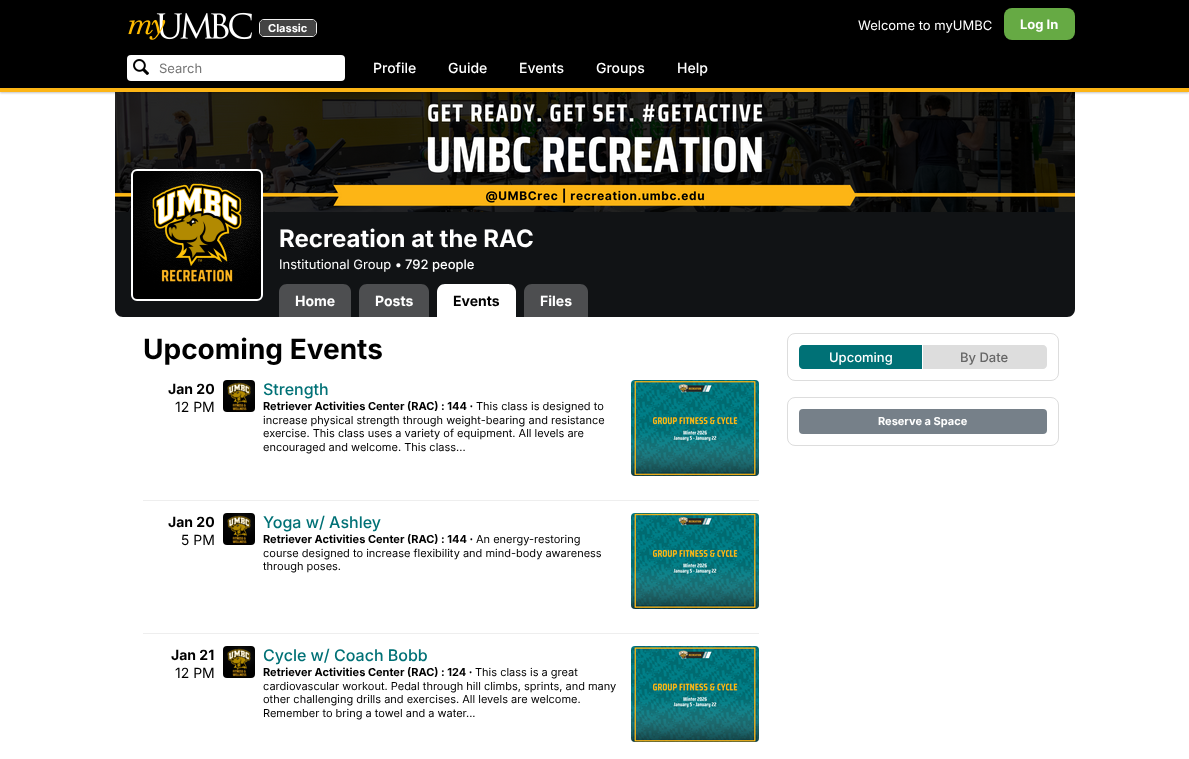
<svg xmlns="http://www.w3.org/2000/svg" width="1189" height="759" viewBox="0 0 1189 759">
  <defs>
    <filter id="blur1" x="-50%" y="-200%" width="200%" height="500%"><feGaussianBlur stdDeviation="1"/></filter>
  </defs>
  <rect width="100%" height="100%" fill="#ffffff"/>
  <image x="115" y="92" width="960" height="120" href="img3.png"/>
  <rect x="0" y="1" width="1189" height="92" fill="#000000" fill-opacity="0.24" filter="url(#blur1)"/>
  <rect x="0" y="0" width="1189" height="88" fill="#000000"/>
  <rect x="0" y="88" width="1189" height="4" fill="#fdb515"/>
  <image x="128" y="12" width="124" height="28" href="img1.png"/>
  <rect x="259.5" y="19.5" width="57" height="17" rx="4.5" fill="none" stroke="#f0f0f0"/>
  <rect x="260" y="20" width="56" height="16" rx="4" fill="#444444"/>
  <text x="268" y="32" font-family="Inter" font-size="11" font-weight="bold" fill="#ffffff">Classic</text>
  <text x="858" y="30" font-family="Inter" font-size="13" fill="#ffffff">Welcome to myUMBC</text>
  <rect x="1004" y="8" width="71" height="32" rx="8" fill="#66aa44"/>
  <text x="1020" y="29" font-family="Inter" font-size="13" font-weight="bold" fill="#ffffff">Log In</text>
  <rect x="127" y="55" width="218" height="26" rx="4" fill="#ffffff"/>
  <image x="133" y="59" width="16" height="16" href="img2.png"/>
  <text x="159" y="73" font-family="Inter" font-size="13" fill="#757575">Search</text>
  <text x="373" y="73" font-family="Inter" font-size="14" font-weight="500" fill="#ffffff">Profile</text>
  <text x="448" y="73" font-family="Inter" font-size="14" font-weight="500" fill="#ffffff">Guide</text>
  <text x="519" y="73" font-family="Inter" font-size="14" font-weight="500" fill="#ffffff">Events</text>
  <text x="596" y="73" font-family="Inter" font-size="14" font-weight="500" fill="#ffffff">Groups</text>
  <text x="677" y="73" font-family="Inter" font-size="14" font-weight="500" fill="#ffffff">Help</text>
  <rect x="115" y="212" width="960" height="66" fill="#111315"/>
  <path d="M115 278H1075V309C1075 313.5 1071.5 317 1067 317H123C118.5 317 115 313.5 115 309Z" fill="#111315"/>
  <image x="133" y="171" width="128" height="128" href="img4.png"/>
  <rect x="132" y="170" width="130" height="130" rx="5" fill="none" stroke="#ffffff" stroke-width="2"/>
  <text x="279" y="247" font-family="Inter" font-size="24" font-weight="bold" fill="#ffffff">Recreation at the RAC</text>
  <text x="279" y="269" font-family="Inter" font-size="13" fill="#ffffff">Institutional Group •</text>
  <text x="405" y="269" font-family="Inter" font-size="13" font-weight="500" fill="#ffffff">792 people</text>
  <path d="M287 284H343C347.5 284 351 287.5 351 292V317H279V292C279 287.5 282.5 284 287 284Z" fill="#4d4e50"/>
  <text x="295" y="306" font-family="Inter" font-size="14" font-weight="bold" fill="#ffffff">Home</text>
  <path d="M367 284H421C425.5 284 429 287.5 429 292V317H359V292C359 287.5 362.5 284 367 284Z" fill="#4d4e50"/>
  <text x="375" y="306" font-family="Inter" font-size="14" font-weight="bold" fill="#ffffff">Posts</text>
  <path d="M445 284H508C512.5 284 516 287.5 516 292V317H437V292C437 287.5 440.5 284 445 284Z" fill="#ffffff"/>
  <text x="453" y="306" font-family="Inter" font-size="14" font-weight="bold" fill="#000000">Events</text>
  <path d="M532 284H580C584.5 284 588 287.5 588 292V317H524V292C524 287.5 527.5 284 532 284Z" fill="#4d4e50"/>
  <text x="540" y="306" font-family="Inter" font-size="14" font-weight="bold" fill="#ffffff">Files</text>
  <text x="143" y="359" font-family="Inter" font-size="28" font-weight="bold" fill="#000000">Upcoming Events</text>
  <text x="168" y="394" font-family="Inter" font-size="14" font-weight="bold" fill="#000000">Jan 20</text>
  <text x="175" y="412" font-family="Inter" font-size="14" fill="#000000">12 PM</text>
  <image x="223" y="380" width="32" height="32" href="img5.png"/>
  <text x="263" y="395" font-family="Inter" font-size="16" font-weight="500" fill="#007176">Strength</text>
  <image x="631" y="380" width="128" height="96" href="img6.png"/>
  <text x="263" y="410" font-family="Inter" font-size="11" font-weight="bold" fill="#000000">Retriever Activities Center (RAC) : 144 ·</text>
  <text x="476" y="410" font-family="Inter" font-size="11" fill="#000000">This class is designed to</text>
  <text x="263" y="424" font-family="Inter" font-size="11" fill="#000000">increase physical strength through weight-bearing and resistance</text>
  <text x="263" y="437" font-family="Inter" font-size="11" fill="#000000">exercise. This class uses a variety of equipment. All levels are</text>
  <text x="263" y="451" font-family="Inter" font-size="11" fill="#000000">encouraged and welcome. This class...</text>
  <rect x="143" y="500" width="616" height="1" fill="#eeeeee"/>
  <text x="168" y="527" font-family="Inter" font-size="14" font-weight="bold" fill="#000000">Jan 20</text>
  <text x="181" y="545" font-family="Inter" font-size="14" fill="#000000">5 PM</text>
  <image x="223" y="513" width="32" height="32" href="img5.png"/>
  <text x="263" y="528" font-family="Inter" font-size="16" font-weight="500" fill="#007176">Yoga w/ Ashley</text>
  <image x="631" y="513" width="128" height="96" href="img7.png"/>
  <text x="263" y="543" font-family="Inter" font-size="11" font-weight="bold" fill="#000000">Retriever Activities Center (RAC) : 144 ·</text>
  <text x="476" y="543" font-family="Inter" font-size="11" fill="#000000">An energy-restoring</text>
  <text x="263" y="557" font-family="Inter" font-size="11" fill="#000000">course designed to increase flexibility and mind-body awareness</text>
  <text x="263" y="570" font-family="Inter" font-size="11" fill="#000000">through poses.</text>
  <rect x="143" y="633" width="616" height="1" fill="#eeeeee"/>
  <text x="171" y="660" font-family="Inter" font-size="14" font-weight="bold" fill="#000000">Jan 21</text>
  <text x="175" y="678" font-family="Inter" font-size="14" fill="#000000">12 PM</text>
  <image x="223" y="646" width="32" height="32" href="img5.png"/>
  <text x="263" y="661" font-family="Inter" font-size="16" font-weight="500" fill="#007176">Cycle w/ Coach Bobb</text>
  <image x="631" y="646" width="128" height="96" href="img8.png"/>
  <text x="263" y="676" font-family="Inter" font-size="11" font-weight="bold" fill="#000000">Retriever Activities Center (RAC) : 124 ·</text>
  <text x="475" y="676" font-family="Inter" font-size="11" fill="#000000">This class is a great</text>
  <text x="263" y="690" font-family="Inter" font-size="11" fill="#000000">cardiovascular workout. Pedal through hill climbs, sprints, and many</text>
  <text x="263" y="703" font-family="Inter" font-size="11" fill="#000000">other challenging drills and exercises. All levels are welcome.</text>
  <text x="263" y="717" font-family="Inter" font-size="11" fill="#000000">Remember to bring a towel and a water...</text>
  <rect x="787.5" y="333.5" width="271" height="47" rx="7.5" fill="none" stroke="#dddddd"/>
  <path d="M803 345H923V369H803C801 369 799 367 799 365V349C799 347 801 345 803 345Z" fill="#007176"/>
  <text x="829" y="362" font-family="Inter" font-size="13" font-weight="500" fill="#ffffff">Upcoming</text>
  <rect x="922" y="345" width="1" height="24" fill="#ffffff"/>
  <path d="M923 345H1043C1045 345 1047 347 1047 349V365C1047 367 1045 369 1043 369H923Z" fill="#dddddd"/>
  <text x="960" y="362" font-family="Inter" font-size="13" font-weight="500" fill="#666666">By Date</text>
  <rect x="787.5" y="397.5" width="271" height="48" rx="7.5" fill="none" stroke="#dddddd"/>
  <rect x="799" y="409" width="248" height="25" rx="4" fill="#768089"/>
  <text x="878" y="425" font-family="Inter" font-size="11" font-weight="bold" fill="#ffffff">Reserve a Space</text>
</svg>
